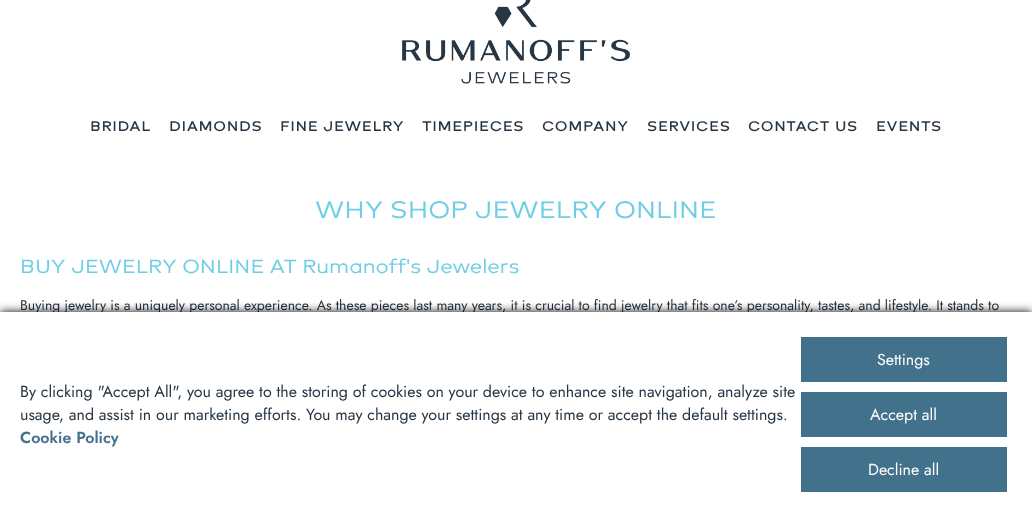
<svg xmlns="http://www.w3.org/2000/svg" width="1032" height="517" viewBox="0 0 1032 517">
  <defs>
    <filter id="blur1" x="-50%" y="-200%" width="200%" height="500%"><feGaussianBlur stdDeviation="5"/></filter>
  </defs>
  <rect width="100%" height="100%" fill="#ffffff"/>
  <image x="402" y="0" width="228" height="84" href="img1.png"/>
  <text x="90" y="131" font-family="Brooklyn" font-size="14" font-weight="bold" letter-spacing="1" fill="#273644">BRIDAL</text>
  <text x="169" y="131" font-family="Brooklyn" font-size="14" font-weight="bold" letter-spacing="1" fill="#273644">DIAMONDS</text>
  <text x="280" y="131" font-family="Brooklyn" font-size="14" font-weight="bold" letter-spacing="1" fill="#273644">FINE JEWELRY</text>
  <text x="422" y="131" font-family="Brooklyn" font-size="14" font-weight="bold" letter-spacing="1" fill="#273644">TIMEPIECES</text>
  <text x="542" y="131" font-family="Brooklyn" font-size="14" font-weight="bold" letter-spacing="1" fill="#273644">COMPANY</text>
  <text x="647" y="131" font-family="Brooklyn" font-size="14" font-weight="bold" letter-spacing="1" fill="#273644">SERVICES</text>
  <text x="748" y="131" font-family="Brooklyn" font-size="14" font-weight="bold" letter-spacing="1" fill="#273644">CONTACT US</text>
  <text x="876" y="131" font-family="Brooklyn" font-size="14" font-weight="bold" letter-spacing="1" fill="#273644">EVENTS</text>
  <text x="315" y="218" font-family="Brooklyn" font-size="25" fill="#6fcde4">WHY SHOP JEWELRY ONLINE</text>
  <text x="20" y="273" font-family="Brooklyn" font-size="20" fill="#6fcde4">BUY JEWELRY ONLINE AT Rumanoff's Jewelers</text>
  <text x="20" y="310" font-family="Jost" font-size="14" fill="#273644">Buying jewelry is a uniquely personal experience. As these pieces last many years, it is crucial to find jewelry that fits one’s personality, tastes, and lifestyle. It stands to</text>
  <rect x="0" y="312" width="1032" height="205" fill="#000000" filter="url(#blur1)"/>
  <rect x="0" y="312" width="1032" height="205" fill="#ffffff"/>
  <text x="20" y="397" font-family="Jost" font-size="16" fill="#273644">By clicking "Accept All", you agree to the storing of cookies on your device to enhance site navigation, analyze site</text>
  <text x="20" y="420" font-family="Jost" font-size="16" fill="#273644">usage, and assist in our marketing efforts. You may change your settings at any time or accept the default settings.</text>
  <text x="20" y="443" font-family="Jost" font-size="16" font-weight="600" fill="#42718c">Cookie Policy</text>
  <rect x="801" y="337" width="206" height="45" fill="#42718c"/>
  <text x="877" y="365" font-family="Jost" font-size="16" fill="#ffffff">Settings</text>
  <rect x="801" y="392" width="206" height="45" fill="#42718c"/>
  <text x="870" y="420" font-family="Jost" font-size="16" fill="#ffffff">Accept all</text>
  <rect x="801" y="447" width="206" height="45" fill="#42718c"/>
  <text x="868" y="475" font-family="Jost" font-size="16" fill="#ffffff">Decline all</text>
</svg>
